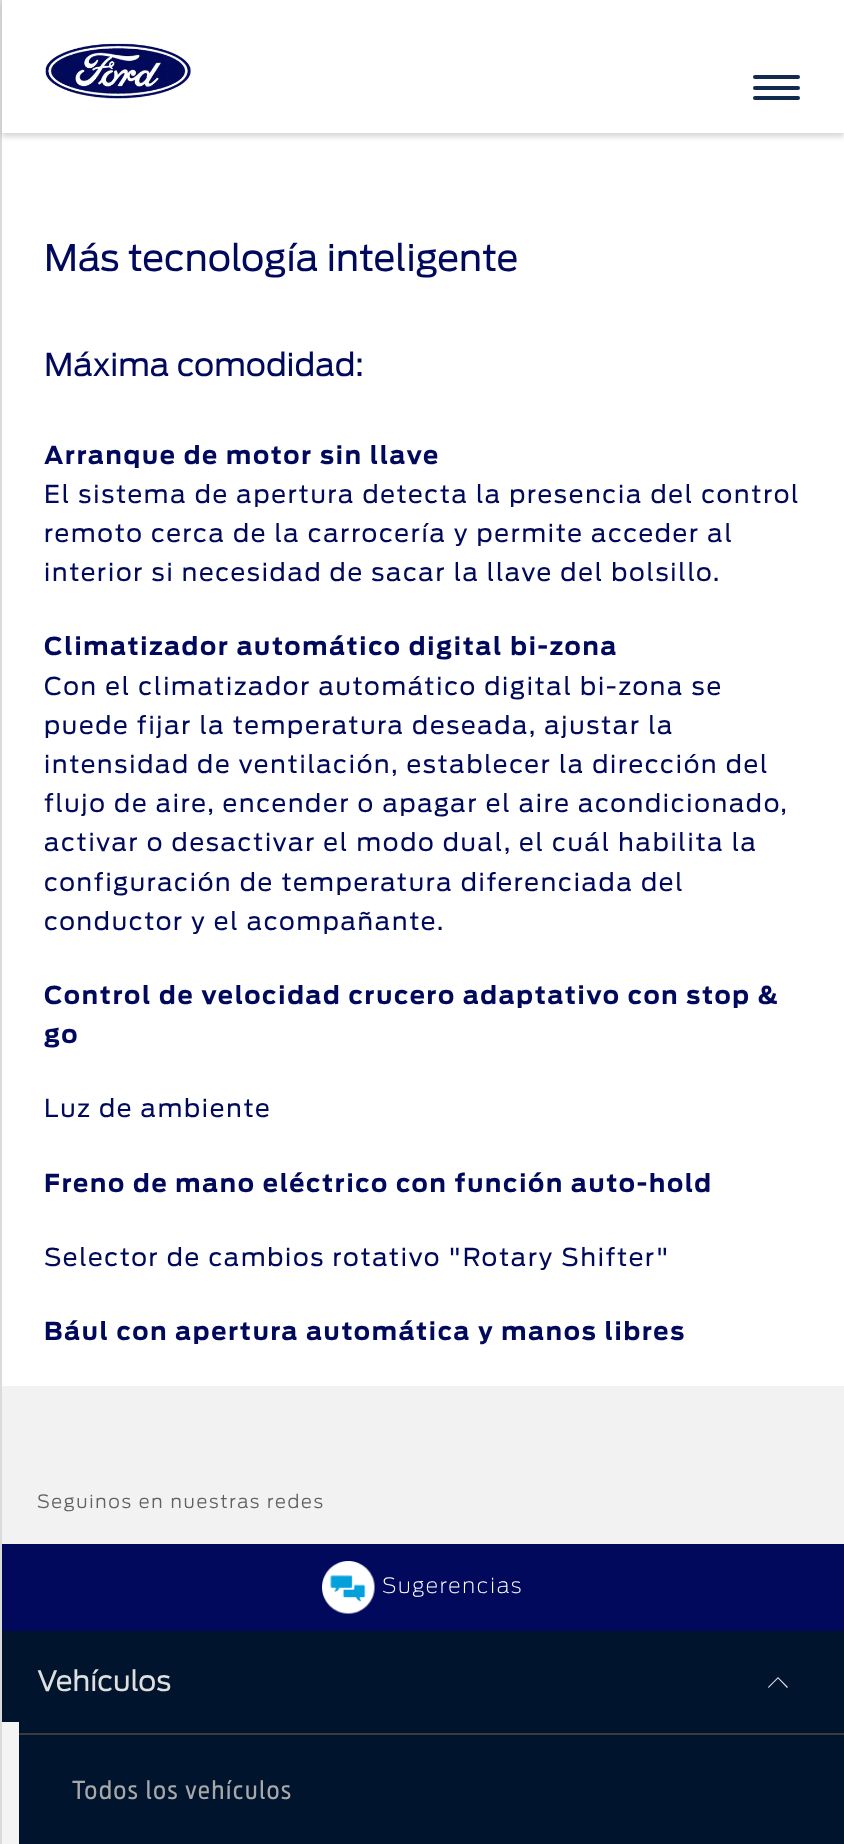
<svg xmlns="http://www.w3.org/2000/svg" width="844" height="1844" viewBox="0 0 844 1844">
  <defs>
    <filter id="blur1" x="-50%" y="-200%" width="200%" height="500%"><feGaussianBlur stdDeviation="2.5"/></filter>
  </defs>
  <rect width="100%" height="100%" fill="#ffffff"/>
  <rect x="0" y="0" width="2" height="1844" fill="#dbdbdb"/>
  <rect x="2" y="4" width="842" height="133" fill="#000000" fill-opacity="0.15" filter="url(#blur1)"/>
  <rect x="2" y="0" width="842" height="133" fill="#ffffff"/>
  <image x="45" y="43" width="146" height="56" href="img1.png"/>
  <rect x="753" y="86" width="47" height="4" rx="2" fill="#102b4e"/>
  <rect x="753" y="75" width="47" height="4" rx="2" fill="#102b4e"/>
  <rect x="753" y="96" width="47" height="4" rx="2" fill="#102b4e"/>
  <rect x="2" y="1631" width="842" height="213" fill="#00142e"/>
  <rect x="2" y="1722" width="17" height="122" fill="#f4f4f4"/>
  <text x="44" y="271" font-family="'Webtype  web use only'" font-size="36.4" fill="#00095b">Más tecnología inteligente</text>
  <text x="44" y="376" font-family="'Webtype  web use only'" font-size="31.5" fill="#00095b">Máxima comodidad:</text>
  <text x="44" y="464" font-family="'Webtype  web use only'" font-size="24.5" font-weight="bold" letter-spacing="1.75" fill="#00095b">Arranque de motor sin llave</text>
  <text x="44" y="503" font-family="'Webtype  web use only'" font-size="24.5" letter-spacing="1.75" fill="#00095b">El sistema de apertura detecta la presencia del control</text>
  <text x="44" y="542" font-family="'Webtype  web use only'" font-size="24.5" letter-spacing="1.75" fill="#00095b">remoto cerca de la carrocería y permite acceder al</text>
  <text x="44" y="581" font-family="'Webtype  web use only'" font-size="24.5" letter-spacing="1.75" fill="#00095b">interior si necesidad de sacar la llave del bolsillo.</text>
  <text x="44" y="655" font-family="'Webtype  web use only'" font-size="24.5" font-weight="bold" letter-spacing="1.75" fill="#00095b">Climatizador automático digital bi-zona</text>
  <text x="44" y="695" font-family="'Webtype  web use only'" font-size="24.5" letter-spacing="1.75" fill="#00095b">Con el climatizador automático digital bi-zona se</text>
  <text x="44" y="734" font-family="'Webtype  web use only'" font-size="24.5" letter-spacing="1.75" fill="#00095b">puede fijar la temperatura deseada, ajustar la</text>
  <text x="44" y="773" font-family="'Webtype  web use only'" font-size="24.5" letter-spacing="1.75" fill="#00095b">intensidad de ventilación, establecer la dirección del</text>
  <text x="44" y="812" font-family="'Webtype  web use only'" font-size="24.5" letter-spacing="1.75" fill="#00095b">flujo de aire, encender o apagar el aire acondicionado,</text>
  <text x="44" y="851" font-family="'Webtype  web use only'" font-size="24.5" letter-spacing="1.75" fill="#00095b">activar o desactivar el modo dual, el cuál habilita la</text>
  <text x="44" y="891" font-family="'Webtype  web use only'" font-size="24.5" letter-spacing="1.75" fill="#00095b">configuración de temperatura diferenciada del</text>
  <text x="44" y="930" font-family="'Webtype  web use only'" font-size="24.5" letter-spacing="1.75" fill="#00095b">conductor y el acompañante.</text>
  <text x="44" y="1004" font-family="'Webtype  web use only'" font-size="24.5" font-weight="bold" letter-spacing="1.75" fill="#00095b">Control de velocidad crucero adaptativo con stop &amp;</text>
  <text x="44" y="1043" font-family="'Webtype  web use only'" font-size="24.5" font-weight="bold" letter-spacing="1.75" fill="#00095b">go</text>
  <text x="44" y="1117" font-family="'Webtype  web use only'" font-size="24.5" letter-spacing="1.75" fill="#00095b">Luz de ambiente</text>
  <text x="44" y="1192" font-family="'Webtype  web use only'" font-size="24.5" font-weight="bold" letter-spacing="1.75" fill="#00095b">Freno de mano eléctrico con función auto-hold</text>
  <text x="44" y="1266" font-family="'Webtype  web use only'" font-size="24.5" letter-spacing="1.75" fill="#00095b">Selector de cambios rotativo "Rotary Shifter"</text>
  <text x="44" y="1340" font-family="'Webtype  web use only'" font-size="24.5" font-weight="bold" letter-spacing="1.75" fill="#00095b">Bául con apertura automática y manos libres</text>
  <rect x="2" y="1386" width="842" height="158" fill="#f2f2f2"/>
  <text x="37" y="1508" font-family="'Webtype  web use only'" font-size="18.25" font-weight="300" letter-spacing="1.75" fill="#616161">Seguinos en nuestras redes</text>
  <rect x="2" y="1544" width="842" height="87" fill="#00095b"/>
  <image x="322" y="1561" width="53" height="53" href="img2.png"/>
  <text x="382" y="1593" font-family="'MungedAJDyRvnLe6'" font-size="21" font-weight="200" letter-spacing="1.75" fill="#ffffff">Sugerencias</text>
  <text x="37" y="1691" font-family="'Webtype  web use only'" font-size="28" fill="#dfdfdf">Vehículos</text>
  <path d="M768.5 1688L768 1687L778 1677L788 1687L787 1688L778 1678.5Z" fill="#dfdfdf"/>
  <rect x="19" y="1733" width="825" height="2" fill="#3b3b3b"/>
  <text x="72" y="1799" font-family="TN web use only" font-size="24.5" letter-spacing="1.75" fill="#a8a8a8">Todos los vehículos</text>
</svg>
